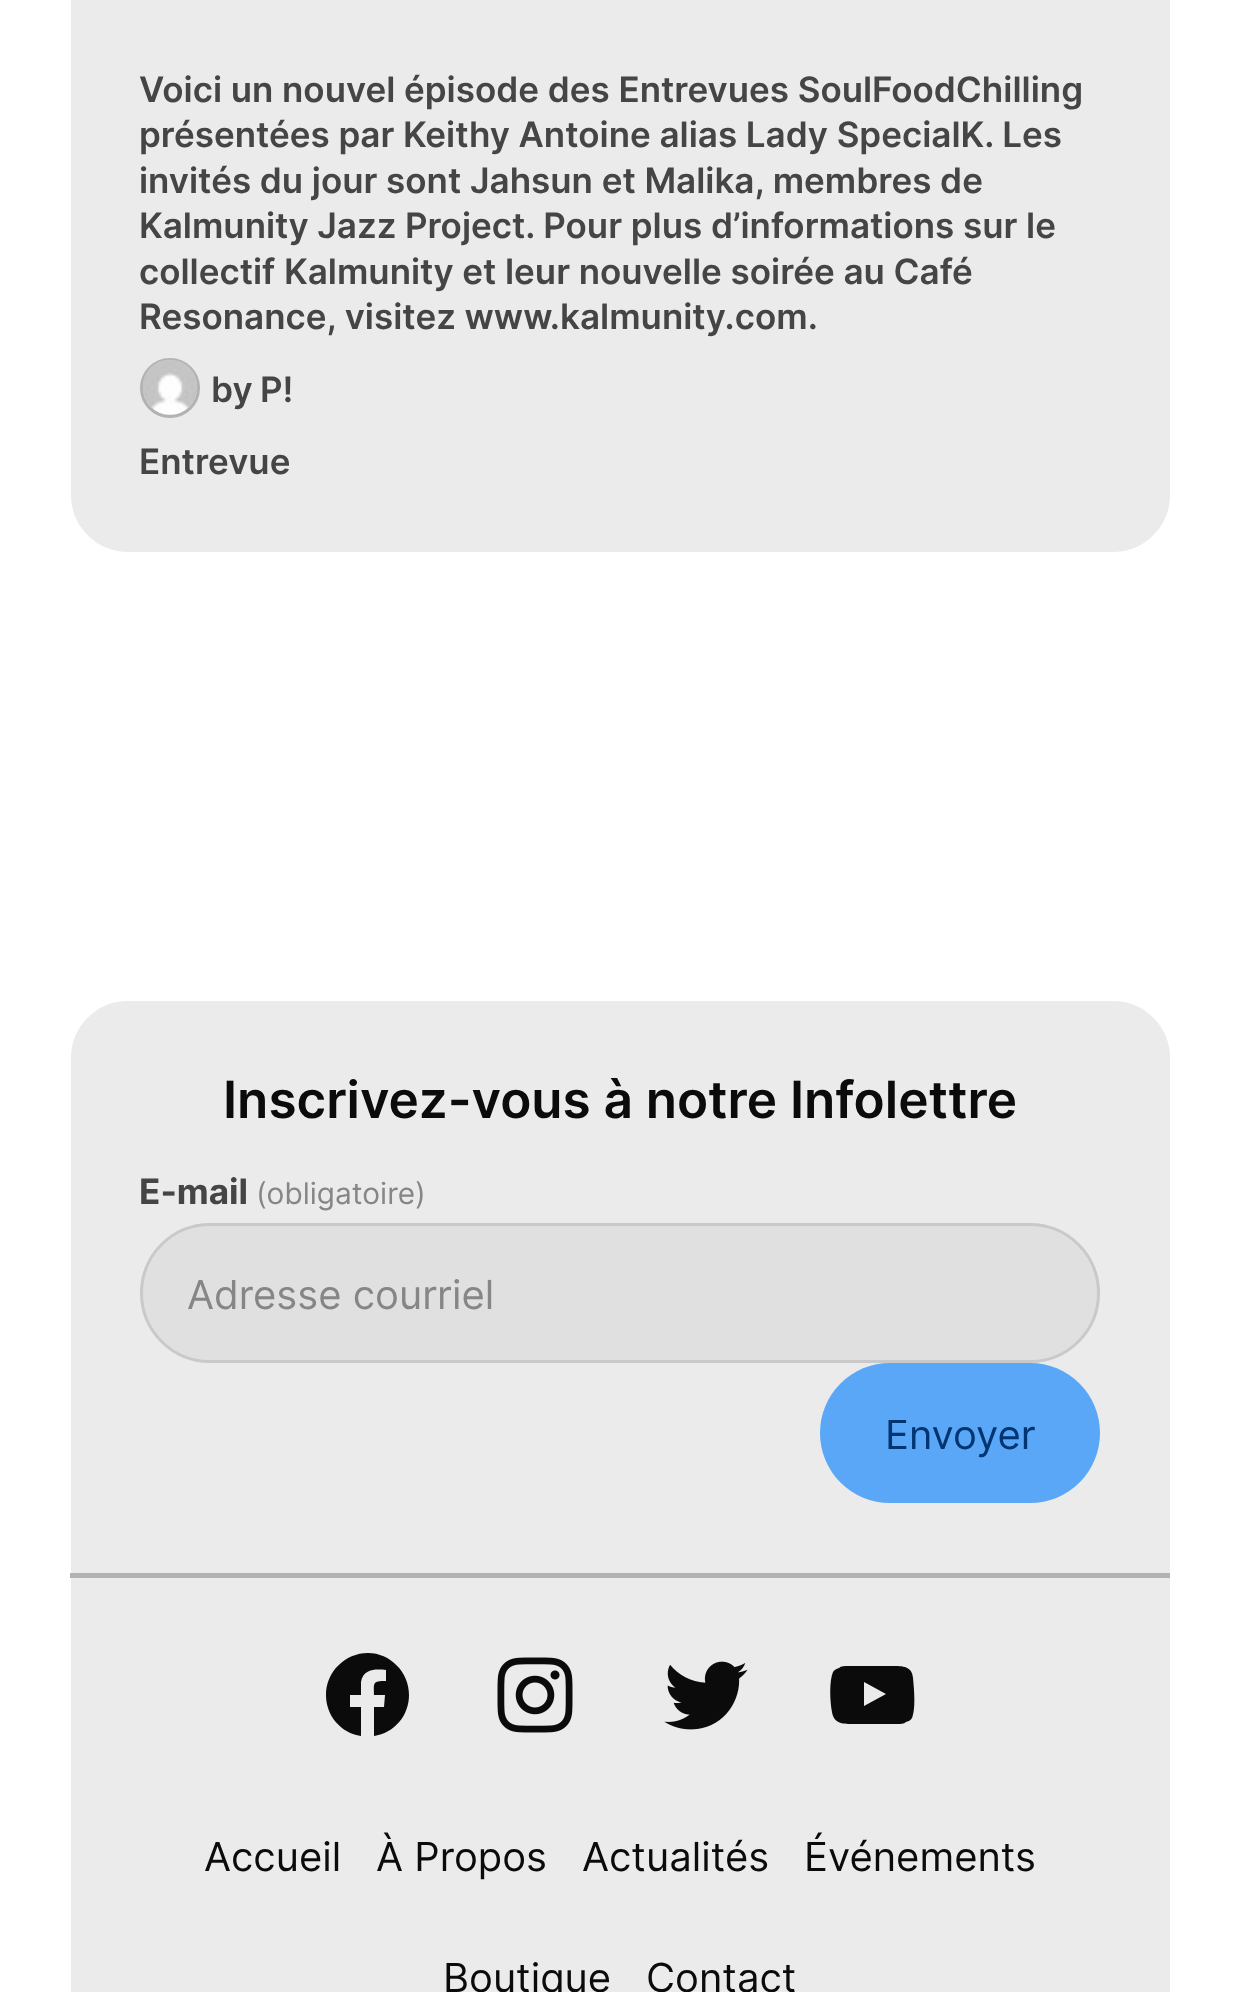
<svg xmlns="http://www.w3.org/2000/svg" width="1239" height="1992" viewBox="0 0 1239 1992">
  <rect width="100%" height="100%" fill="#ffffff"/>
  <rect x="69.5" y="-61.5" width="1102" height="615" rx="58.5" fill="#ebebeb" stroke="#ffffff" stroke-width="3"/>
  <text x="139" y="102" font-family="Inter" font-size="35" font-weight="600" fill="#454545">Voici un nouvel épisode des Entrevues SoulFoodChilling</text>
  <text x="139" y="147" font-family="Inter" font-size="35" font-weight="600" fill="#454545">présentées par Keithy Antoine alias Lady SpecialK. Les</text>
  <text x="139" y="193" font-family="Inter" font-size="35" font-weight="600" fill="#454545">invités du jour sont Jahsun et Malika, membres de</text>
  <text x="139" y="238" font-family="Inter" font-size="35" font-weight="600" fill="#454545">Kalmunity Jazz Project. Pour plus d’informations sur le</text>
  <text x="139" y="284" font-family="Inter" font-size="35" font-weight="600" fill="#454545">collectif Kalmunity et leur nouvelle soirée au Café</text>
  <text x="139" y="329" font-family="Inter" font-size="35" font-weight="600" fill="#454545">Resonance, visitez www.kalmunity.com.</text>
  <circle cx="170" cy="388" r="28.5" fill="none" stroke="#b2b2b2" stroke-width="3"/>
  <image x="142" y="359" width="56" height="56" href="img1.png"/>
  <text x="211" y="402" font-family="Inter" font-size="35" font-weight="600" fill="#454545">by</text>
  <text x="260" y="402" font-family="Inter" font-size="35" font-weight="600" fill="#454545">P!</text>
  <text x="139" y="474" font-family="Inter" font-size="35" font-weight="600" fill="#454545">Entrevue</text>
  <rect x="69.5" y="999.5" width="1102" height="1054" rx="58.5" fill="#ebebeb" stroke="#ffffff" stroke-width="3"/>
  <text x="223" y="1118" font-family="Inter" font-size="51.3" font-weight="600" fill="#0b0b0b">Inscrivez-vous à notre Infolettre</text>
  <text x="139" y="1204" font-family="Inter" font-size="35" font-weight="bold" fill="#454545">E-mail</text>
  <text x="256" y="1204" font-family="Inter" font-size="29.75" fill="#868686">(obligatoire)</text>
  <rect x="140" y="1223" width="960" height="140" rx="70" fill="#e0e0e0"/>
  <rect x="141.5" y="1224.5" width="957" height="137" rx="68.5" fill="none" stroke="#000000" stroke-opacity="0.1" stroke-width="3"/>
  <text x="187" y="1309" font-family="Inter" font-size="40" fill="#868686">Adresse courriel</text>
  <rect x="820" y="1363" width="280" height="140" rx="70" fill="#59a7f6"/>
  <text x="885" y="1449" font-family="Inter" font-size="40" fill="#003571">Envoyer</text>
  <rect x="70" y="1573" width="1100" height="5" fill="#b2b2b2"/>
  <path d="M368 1653C345 1653 326 1672 326 1695C326 1716 341 1733 361 1736V1707H350V1695H361V1682C363 1669 375 1669 386 1670V1681C372 1681 374 1683 374 1695H385L384 1707H374V1736C394 1733 409 1716 409 1695C409 1672 390 1653 368 1653Z" fill="#0b0b0b"/>
  <image x="497" y="1657" width="76" height="76" href="img2.png"/>
  <image x="664" y="1661" width="84" height="69" href="img3.png"/>
  <path d="M913 1678C912 1666 903 1666 892 1666H866H848C845 1666 841 1666 839 1668C836 1669 834 1670 833 1672C829 1681 830 1702 832 1712C834 1725 845 1724 856 1724H879H897C900 1724 904 1724 906 1722C909 1721 911 1720 912 1718C916 1709 914 1688 913 1678ZM864 1706V1682L886 1694Z" fill="#0b0b0b"/>
  <text x="204" y="1871" font-family="Inter" font-size="40" fill="#0b0b0b">Accueil</text>
  <text x="376" y="1871" font-family="Inter" font-size="40" fill="#0b0b0b">À Propos</text>
  <text x="582" y="1871" font-family="Inter" font-size="40" fill="#0b0b0b">Actualités</text>
  <text x="804" y="1871" font-family="Inter" font-size="40" fill="#0b0b0b">Événements</text>
  <text x="443" y="1992" font-family="Inter" font-size="40" fill="#0b0b0b">Boutique</text>
  <text x="646" y="1992" font-family="Inter" font-size="40" fill="#0b0b0b">Contact</text>
</svg>
